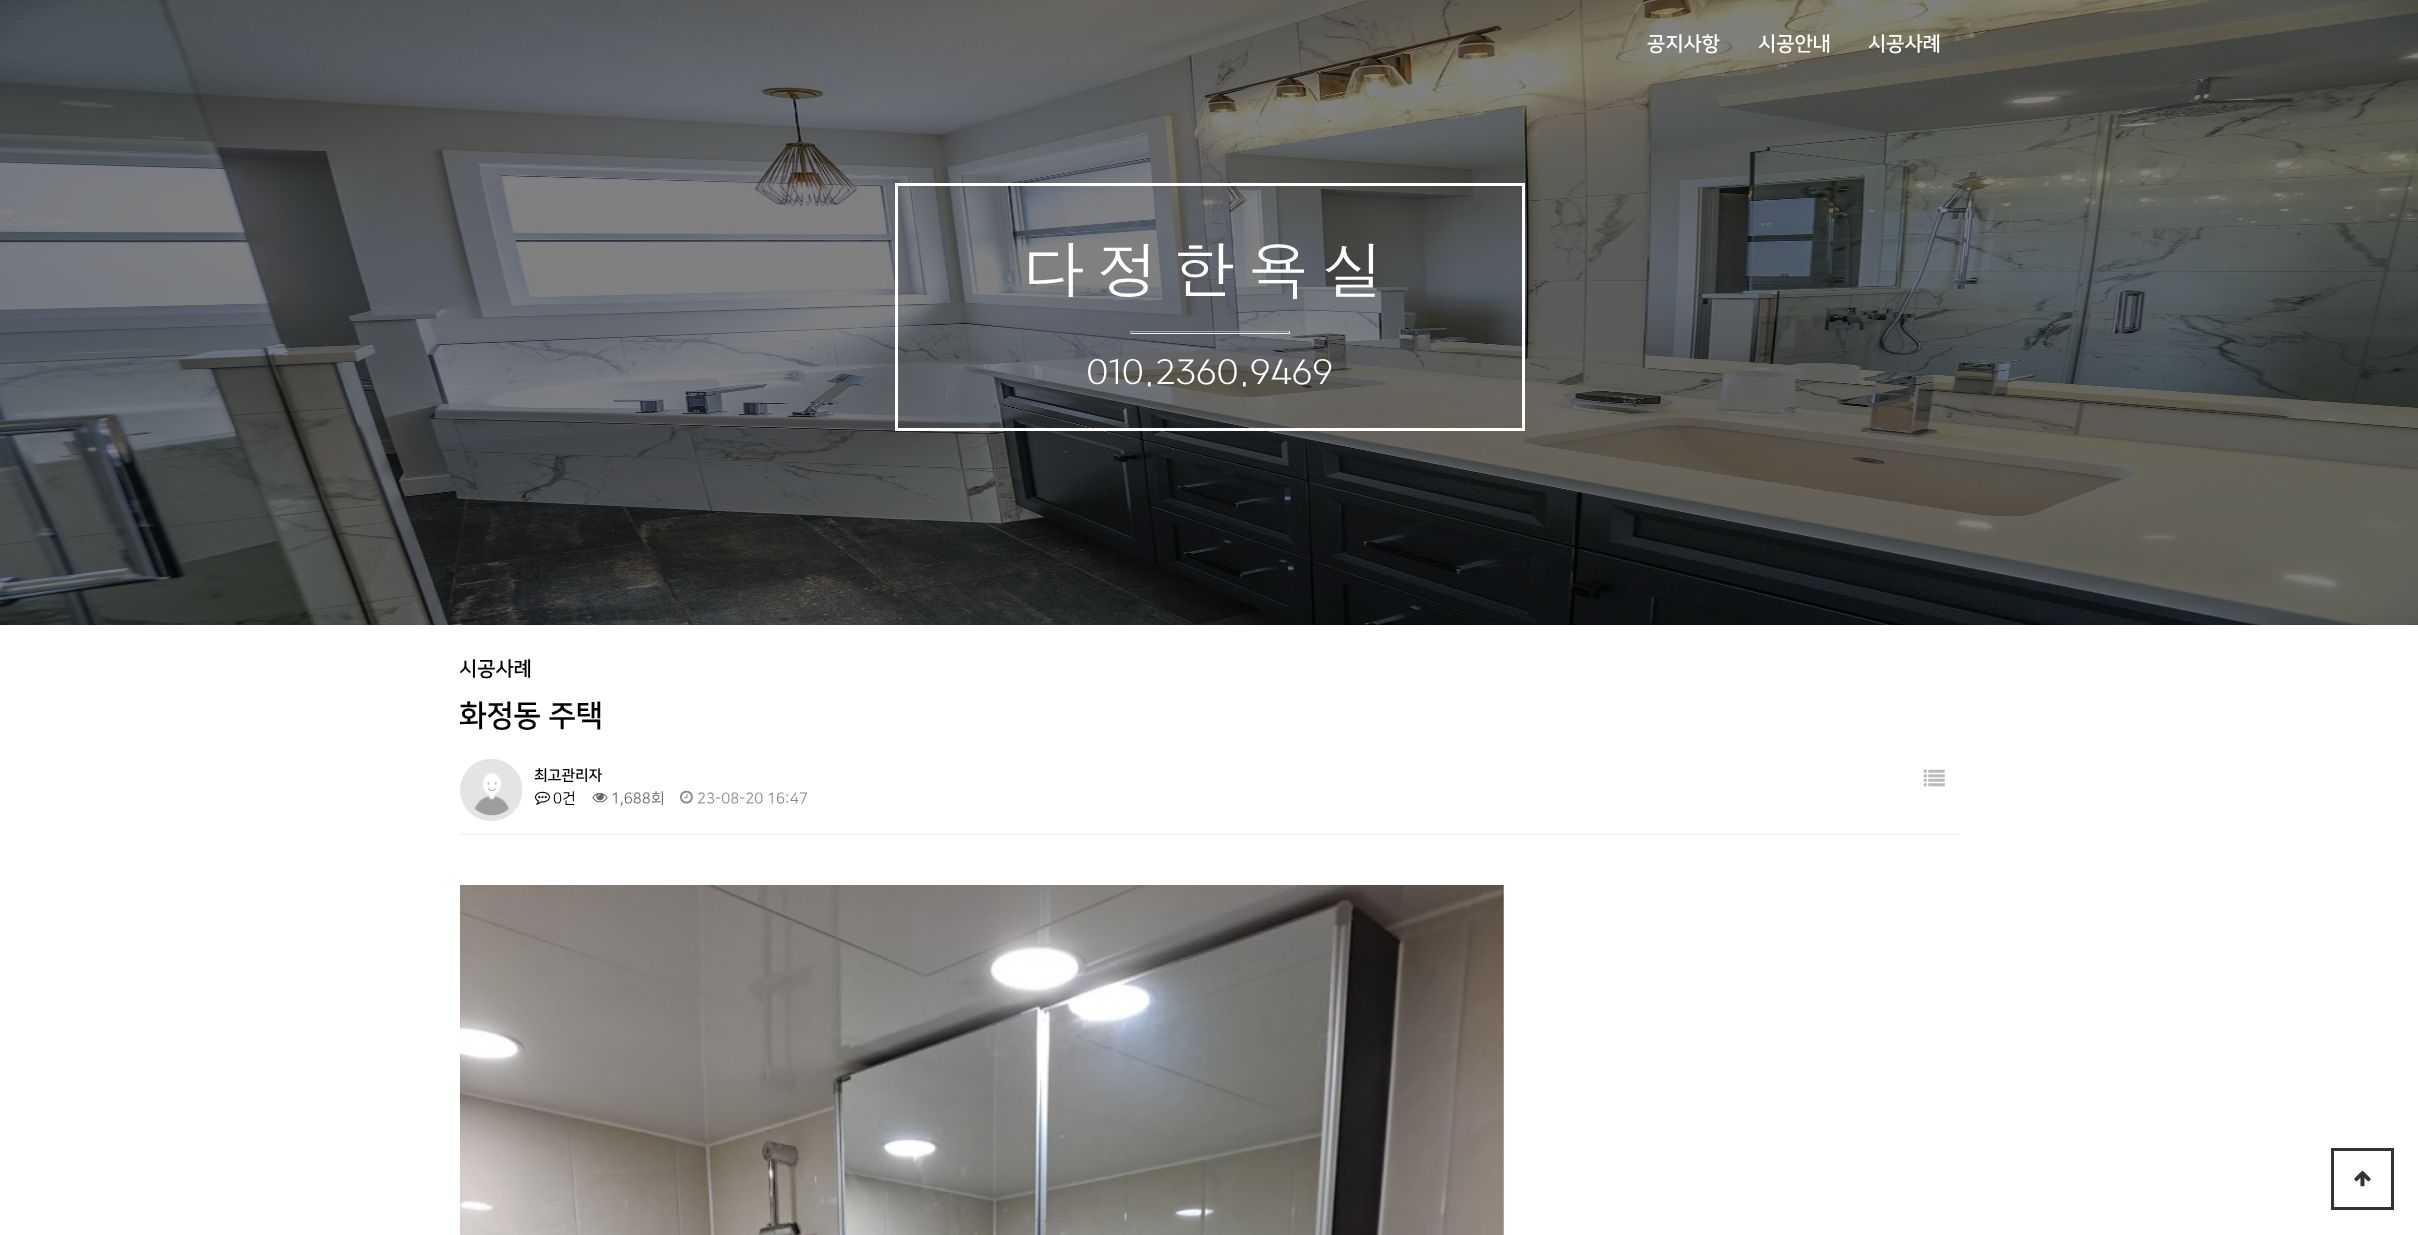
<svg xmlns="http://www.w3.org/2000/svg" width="2418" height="1235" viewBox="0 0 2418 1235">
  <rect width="100%" height="100%" fill="#ffffff"/>
  <image x="0" y="0" width="2418" height="625" href="img1.png"/>
  <text x="1647" y="50" font-family="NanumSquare" font-size="20" font-weight="bold" fill="#ffffff">공지사항</text>
  <text x="1758" y="50" font-family="NanumSquare" font-size="20" font-weight="bold" fill="#ffffff">시공안내</text>
  <text x="1868" y="50" font-family="NanumSquare" font-size="20" font-weight="bold" fill="#ffffff">시공사례</text>
  <rect x="896.5" y="184.5" width="627" height="245" fill="none" stroke="#ffffff" stroke-width="3"/>
  <text x="1022" y="294" font-family="Dotum" font-size="62.5" letter-spacing="12.5" fill="#ffffff">다정한욕실</text>
  <rect x="1130" y="331" width="160" height="1" fill="#9f9f9f"/>
  <rect x="1289" y="331" width="1" height="3" fill="#eeeeee"/>
  <rect x="1130" y="333" width="160" height="1" fill="#eeeeee"/>
  <rect x="1130" y="331" width="1" height="3" fill="#9f9f9f"/>
  <text x="1086" y="384" font-family="'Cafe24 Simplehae'" font-size="37.5" fill="#ffffff">010.2360.9469</text>
  <text x="459" y="675" font-family="NanumSquare" font-size="20" font-weight="bold" fill="#000000">시공사례</text>
  <text x="459" y="725" font-family="NanumSquare" font-size="30" font-weight="bold" fill="#000000">화정동 주택</text>
  <rect x="460" y="834" width="1500" height="1" fill="#f1f1f1"/>
  <image x="460" y="759" width="63" height="62" href="img2.png"/>
  <text x="534" y="780" font-family="NanumSquare" font-size="15" font-weight="bold" fill="#000000">최고관리자</text>
  <image x="535" y="791" width="15" height="14" href="img3.png"/>
  <text x="553" y="803" font-family="NanumSquare" font-size="15" fill="#000000">0건</text>
  <image x="592" y="792" width="16" height="11" href="img4.png"/>
  <text x="611" y="803" font-family="NanumSquare" font-size="15" fill="#666666">1,688회</text>
  <image x="680" y="790" width="13" height="14" href="img5.png"/>
  <text x="697" y="803" font-family="NanumSquare" font-size="15" fill="#888888">23-08-20 16:47</text>
  <image x="1923" y="769" width="22" height="18" href="img6.png"/>
  <image x="460" y="885" width="1044" height="350" href="img7.png"/>
  <rect x="2332.5" y="1149.5" width="60" height="59" fill="none" stroke="#333333" stroke-width="3"/>
  <image x="2354" y="1170" width="17" height="17" href="img8.png"/>
</svg>
